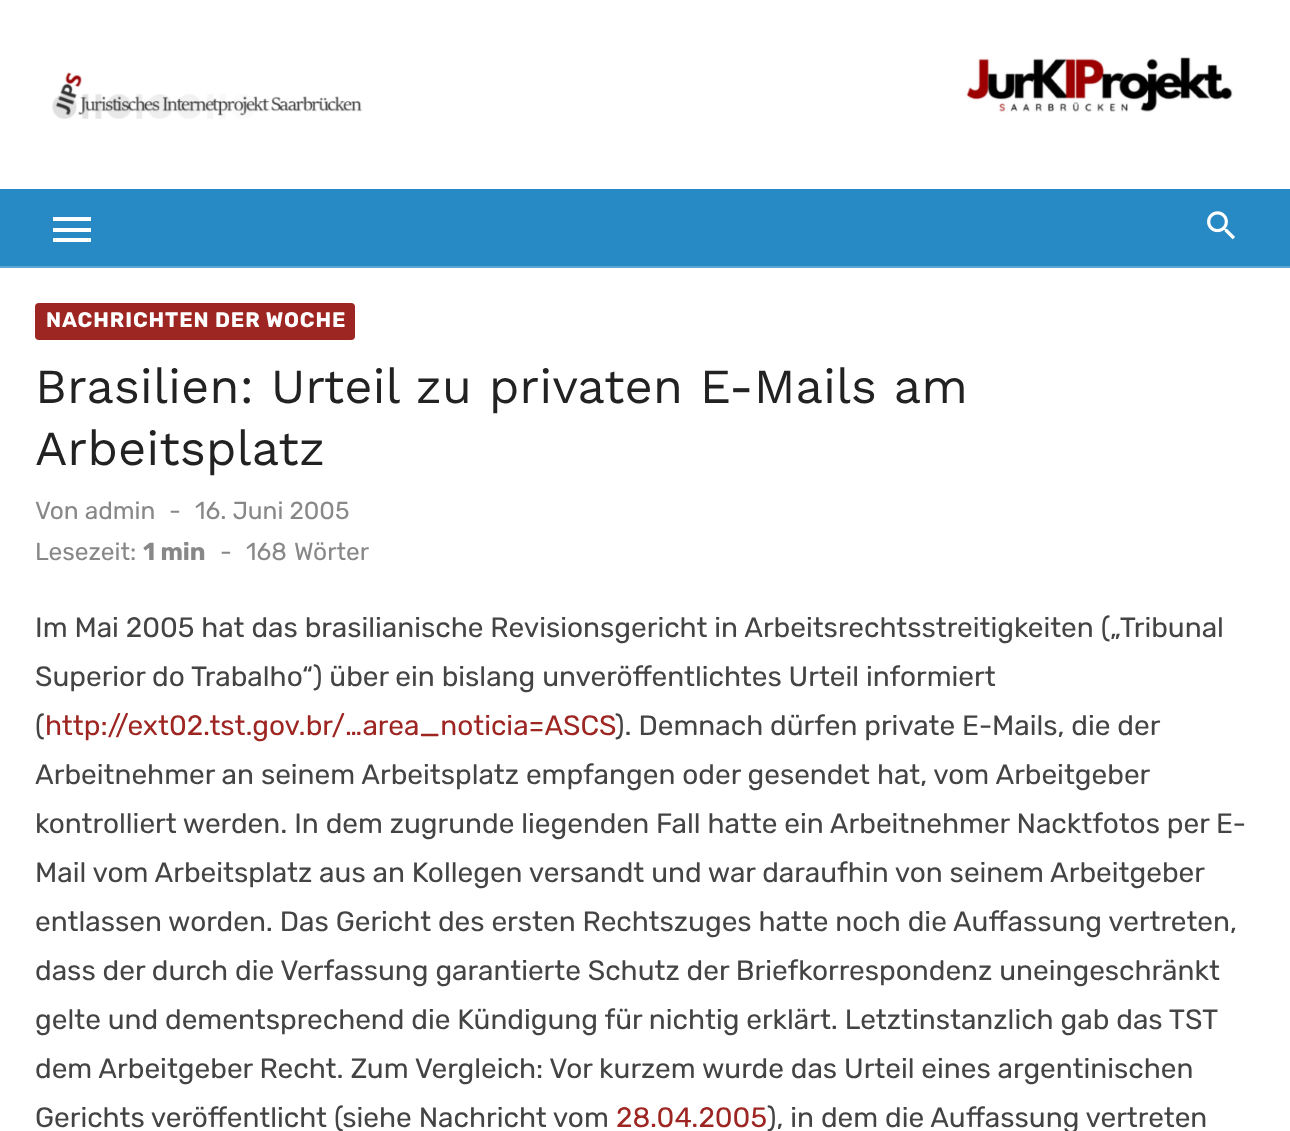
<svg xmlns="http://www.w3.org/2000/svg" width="1290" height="1131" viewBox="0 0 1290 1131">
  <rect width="100%" height="100%" fill="#ffffff"/>
  <image x="52" y="57" width="1181" height="62" href="img1.png"/>
  <rect x="0" y="189" width="1290" height="77" fill="#288ac4"/>
  <rect x="53" y="228" width="38" height="4" fill="#ffffff"/>
  <rect x="53" y="217" width="38" height="4" fill="#ffffff"/>
  <rect x="53" y="238" width="38" height="4" fill="#ffffff"/>
  <image x="1207" y="211" width="28" height="29" href="img2.png"/>
  <rect x="0" y="266" width="1290" height="2" fill="#5ea7d3"/>
  <rect x="35" y="303" width="320" height="37" rx="4" fill="#9e2622"/>
  <text x="46" y="327" font-family="Rubik" font-size="21" font-weight="bold" letter-spacing="0.9" fill="#ffffff">NACHRICHTEN DER WOCHE</text>
  <text x="35" y="403" font-family="Work Sans" font-size="49" fill="#222222">Brasilien: Urteil zu privaten E-Mails am</text>
  <text x="35" y="465" font-family="Work Sans" font-size="49" fill="#222222">Arbeitsplatz</text>
  <text x="35" y="519" font-family="Rubik" font-size="24.5" fill="#888888">Von admin</text>
  <text x="169" y="519" font-family="Rubik" font-size="24.5" fill="#888888">-</text>
  <text x="195" y="519" font-family="Rubik" font-size="24.5" fill="#888888">16. Juni 2005</text>
  <text x="35" y="560" font-family="Rubik" font-size="24.5" fill="#888888">Lesezeit:</text>
  <text x="143" y="560" font-family="Rubik" font-size="24.5" font-weight="bold" fill="#888888">1 min</text>
  <text x="220" y="560" font-family="Rubik" font-size="24.5" fill="#888888">-</text>
  <text x="246" y="560" font-family="Rubik" font-size="24.5" fill="#888888">168</text>
  <text x="294" y="560" font-family="Rubik" font-size="24.5" fill="#888888">Wörter</text>
  <text x="35" y="637" font-family="Rubik" font-size="28" fill="#444444">Im Mai 2005 hat das brasilianische Revisionsgericht in Arbeitsrechtsstreitigkeiten („Tribunal</text>
  <text x="35" y="686" font-family="Rubik" font-size="28" fill="#444444">Superior do Trabalho“) über ein bislang unveröffentlichtes Urteil informiert</text>
  <text x="35" y="735" font-family="Rubik" font-size="28" fill="#444444">(</text>
  <text x="45" y="735" font-family="Rubik" font-size="28" fill="#9e2622">http://ext02.tst.gov.br/…area_noticia=ASCS</text>
  <text x="615" y="735" font-family="Rubik" font-size="28" fill="#444444">). Demnach dürfen private E-Mails, die der</text>
  <text x="35" y="784" font-family="Rubik" font-size="28" fill="#444444">Arbeitnehmer an seinem Arbeitsplatz empfangen oder gesendet hat, vom Arbeitgeber</text>
  <text x="35" y="833" font-family="Rubik" font-size="28" fill="#444444">kontrolliert werden. In dem zugrunde liegenden Fall hatte ein Arbeitnehmer Nacktfotos per E-</text>
  <text x="35" y="882" font-family="Rubik" font-size="28" fill="#444444">Mail vom Arbeitsplatz aus an Kollegen versandt und war daraufhin von seinem Arbeitgeber</text>
  <text x="35" y="931" font-family="Rubik" font-size="28" fill="#444444">entlassen worden. Das Gericht des ersten Rechtszuges hatte noch die Auffassung vertreten,</text>
  <text x="35" y="980" font-family="Rubik" font-size="28" fill="#444444">dass der durch die Verfassung garantierte Schutz der Briefkorrespondenz uneingeschränkt</text>
  <text x="35" y="1029" font-family="Rubik" font-size="28" fill="#444444">gelte und dementsprechend die Kündigung für nichtig erklärt. Letztinstanzlich gab das TST</text>
  <text x="35" y="1078" font-family="Rubik" font-size="28" fill="#444444">dem Arbeitgeber Recht. Zum Vergleich: Vor kurzem wurde das Urteil eines argentinischen</text>
  <text x="35" y="1127" font-family="Rubik" font-size="28" fill="#444444">Gerichts veröffentlicht (siehe Nachricht vom</text>
  <text x="616" y="1127" font-family="Rubik" font-size="28" fill="#9e2622">28.04.2005</text>
  <text x="767" y="1127" font-family="Rubik" font-size="28" fill="#444444">), in dem die Auffassung vertreten</text>
</svg>
